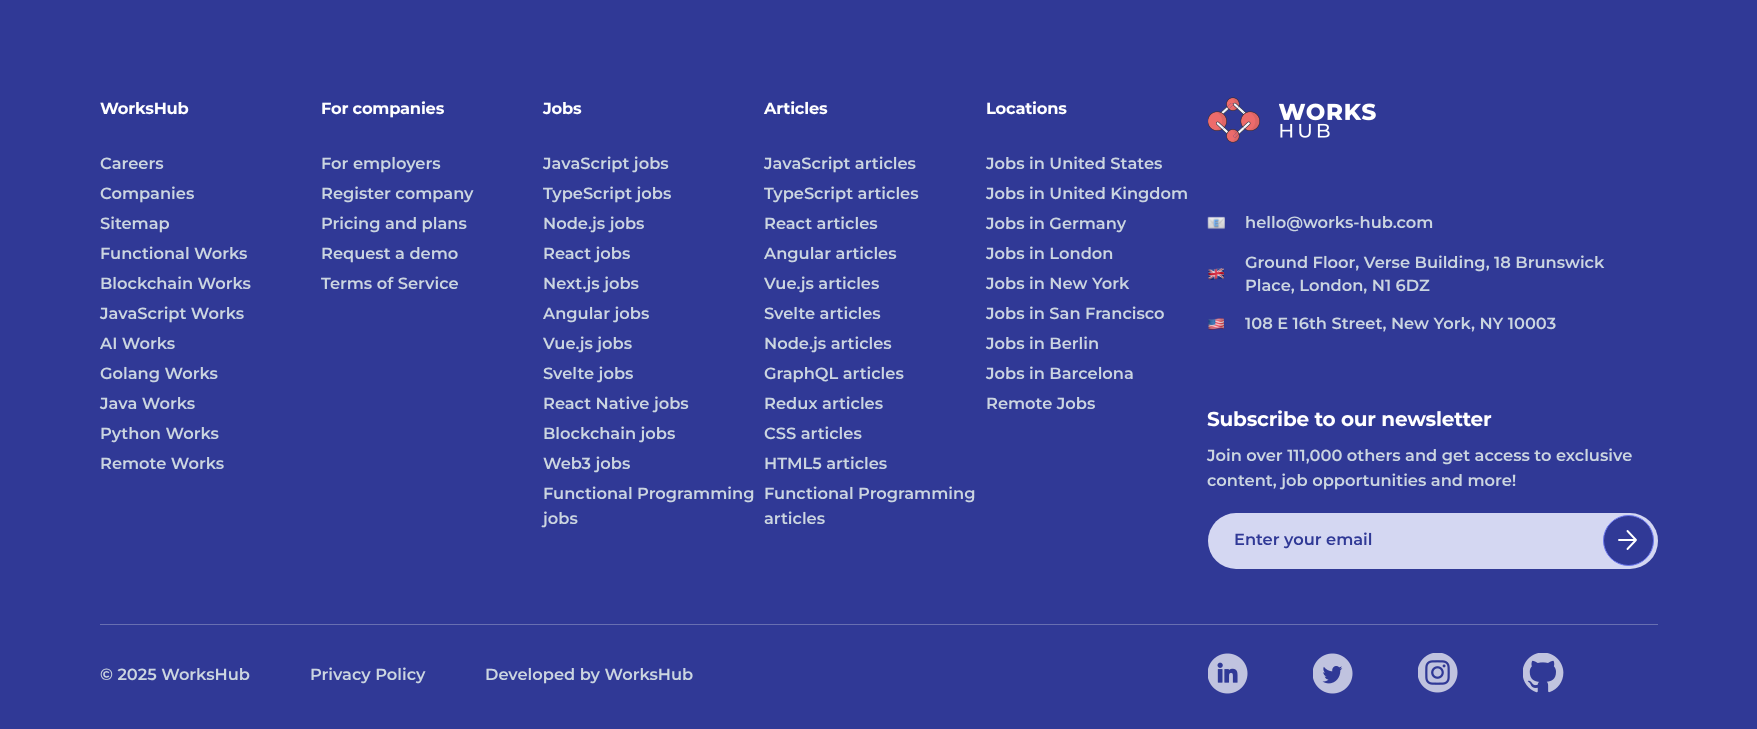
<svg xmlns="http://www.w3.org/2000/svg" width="1757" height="729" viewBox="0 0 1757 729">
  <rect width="100%" height="100%" fill="#303996"/>
  <text x="100" y="114" font-family="Montserrat" font-size="16.25" font-weight="100" letter-spacing="-0.2" fill="#ffffff">WorksHub</text>
  <text x="100" y="169" font-family="'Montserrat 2'" font-size="16.25" font-weight="100" fill="#cbd5e0">Careers</text>
  <text x="100" y="199" font-family="'Montserrat 2'" font-size="16.25" font-weight="100" fill="#cbd5e0">Companies</text>
  <text x="100" y="229" font-family="'Montserrat 2'" font-size="16.25" font-weight="100" fill="#cbd5e0">Sitemap</text>
  <text x="100" y="259" font-family="'Montserrat 2'" font-size="16.25" font-weight="100" fill="#cbd5e0">Functional Works</text>
  <text x="100" y="289" font-family="'Montserrat 2'" font-size="16.25" font-weight="100" fill="#cbd5e0">Blockchain Works</text>
  <text x="100" y="319" font-family="'Montserrat 2'" font-size="16.25" font-weight="100" fill="#cbd5e0">JavaScript Works</text>
  <text x="100" y="349" font-family="'Montserrat 2'" font-size="16.25" font-weight="100" fill="#cbd5e0">AI Works</text>
  <text x="100" y="379" font-family="'Montserrat 2'" font-size="16.25" font-weight="100" fill="#cbd5e0">Golang Works</text>
  <text x="100" y="409" font-family="'Montserrat 2'" font-size="16.25" font-weight="100" fill="#cbd5e0">Java Works</text>
  <text x="100" y="439" font-family="'Montserrat 2'" font-size="16.25" font-weight="100" fill="#cbd5e0">Python Works</text>
  <text x="100" y="469" font-family="'Montserrat 2'" font-size="16.25" font-weight="100" fill="#cbd5e0">Remote Works</text>
  <text x="321" y="114" font-family="Montserrat" font-size="16.25" font-weight="100" letter-spacing="-0.2" fill="#ffffff">For companies</text>
  <text x="321" y="169" font-family="'Montserrat 2'" font-size="16.25" font-weight="100" fill="#cbd5e0">For employers</text>
  <text x="321" y="199" font-family="'Montserrat 2'" font-size="16.25" font-weight="100" fill="#cbd5e0">Register company</text>
  <text x="321" y="229" font-family="'Montserrat 2'" font-size="16.25" font-weight="100" fill="#cbd5e0">Pricing and plans</text>
  <text x="321" y="259" font-family="'Montserrat 2'" font-size="16.25" font-weight="100" fill="#cbd5e0">Request a demo</text>
  <text x="321" y="289" font-family="'Montserrat 2'" font-size="16.25" font-weight="100" fill="#cbd5e0">Terms of Service</text>
  <text x="543" y="114" font-family="Montserrat" font-size="16.25" font-weight="100" letter-spacing="-0.2" fill="#ffffff">Jobs</text>
  <text x="543" y="169" font-family="'Montserrat 2'" font-size="16.25" font-weight="100" fill="#cbd5e0">JavaScript jobs</text>
  <text x="543" y="199" font-family="'Montserrat 2'" font-size="16.25" font-weight="100" fill="#cbd5e0">TypeScript jobs</text>
  <text x="543" y="229" font-family="'Montserrat 2'" font-size="16.25" font-weight="100" fill="#cbd5e0">Node.js jobs</text>
  <text x="543" y="259" font-family="'Montserrat 2'" font-size="16.25" font-weight="100" fill="#cbd5e0">React jobs</text>
  <text x="543" y="289" font-family="'Montserrat 2'" font-size="16.25" font-weight="100" fill="#cbd5e0">Next.js jobs</text>
  <text x="543" y="319" font-family="'Montserrat 2'" font-size="16.25" font-weight="100" fill="#cbd5e0">Angular jobs</text>
  <text x="543" y="349" font-family="'Montserrat 2'" font-size="16.25" font-weight="100" fill="#cbd5e0">Vue.js jobs</text>
  <text x="543" y="379" font-family="'Montserrat 2'" font-size="16.25" font-weight="100" fill="#cbd5e0">Svelte jobs</text>
  <text x="543" y="409" font-family="'Montserrat 2'" font-size="16.25" font-weight="100" fill="#cbd5e0">React Native jobs</text>
  <text x="543" y="439" font-family="'Montserrat 2'" font-size="16.25" font-weight="100" fill="#cbd5e0">Blockchain jobs</text>
  <text x="543" y="469" font-family="'Montserrat 2'" font-size="16.25" font-weight="100" fill="#cbd5e0">Web3 jobs</text>
  <text x="543" y="499" font-family="'Montserrat 2'" font-size="16.25" font-weight="100" fill="#cbd5e0">Functional Programming</text>
  <text x="543" y="524" font-family="'Montserrat 2'" font-size="16.25" font-weight="100" fill="#cbd5e0">jobs</text>
  <text x="764" y="114" font-family="Montserrat" font-size="16.25" font-weight="100" letter-spacing="-0.2" fill="#ffffff">Articles</text>
  <text x="764" y="169" font-family="'Montserrat 2'" font-size="16.25" font-weight="100" fill="#cbd5e0">JavaScript articles</text>
  <text x="764" y="199" font-family="'Montserrat 2'" font-size="16.25" font-weight="100" fill="#cbd5e0">TypeScript articles</text>
  <text x="764" y="229" font-family="'Montserrat 2'" font-size="16.25" font-weight="100" fill="#cbd5e0">React articles</text>
  <text x="764" y="259" font-family="'Montserrat 2'" font-size="16.25" font-weight="100" fill="#cbd5e0">Angular articles</text>
  <text x="764" y="289" font-family="'Montserrat 2'" font-size="16.25" font-weight="100" fill="#cbd5e0">Vue.js articles</text>
  <text x="764" y="319" font-family="'Montserrat 2'" font-size="16.25" font-weight="100" fill="#cbd5e0">Svelte articles</text>
  <text x="764" y="349" font-family="'Montserrat 2'" font-size="16.25" font-weight="100" fill="#cbd5e0">Node.js articles</text>
  <text x="764" y="379" font-family="'Montserrat 2'" font-size="16.25" font-weight="100" fill="#cbd5e0">GraphQL articles</text>
  <text x="764" y="409" font-family="'Montserrat 2'" font-size="16.25" font-weight="100" fill="#cbd5e0">Redux articles</text>
  <text x="764" y="439" font-family="'Montserrat 2'" font-size="16.25" font-weight="100" fill="#cbd5e0">CSS articles</text>
  <text x="764" y="469" font-family="'Montserrat 2'" font-size="16.25" font-weight="100" fill="#cbd5e0">HTML5 articles</text>
  <text x="764" y="499" font-family="'Montserrat 2'" font-size="16.25" font-weight="100" fill="#cbd5e0">Functional Programming</text>
  <text x="764" y="524" font-family="'Montserrat 2'" font-size="16.25" font-weight="100" fill="#cbd5e0">articles</text>
  <text x="986" y="114" font-family="Montserrat" font-size="16.25" font-weight="100" letter-spacing="-0.2" fill="#ffffff">Locations</text>
  <text x="986" y="169" font-family="'Montserrat 2'" font-size="16.25" font-weight="100" fill="#cbd5e0">Jobs in United States</text>
  <text x="986" y="199" font-family="'Montserrat 2'" font-size="16.25" font-weight="100" fill="#cbd5e0">Jobs in United Kingdom</text>
  <text x="986" y="229" font-family="'Montserrat 2'" font-size="16.25" font-weight="100" fill="#cbd5e0">Jobs in Germany</text>
  <text x="986" y="259" font-family="'Montserrat 2'" font-size="16.25" font-weight="100" fill="#cbd5e0">Jobs in London</text>
  <text x="986" y="289" font-family="'Montserrat 2'" font-size="16.25" font-weight="100" fill="#cbd5e0">Jobs in New York</text>
  <text x="986" y="319" font-family="'Montserrat 2'" font-size="16.25" font-weight="100" fill="#cbd5e0">Jobs in San Francisco</text>
  <text x="986" y="349" font-family="'Montserrat 2'" font-size="16.25" font-weight="100" fill="#cbd5e0">Jobs in Berlin</text>
  <text x="986" y="379" font-family="'Montserrat 2'" font-size="16.25" font-weight="100" fill="#cbd5e0">Jobs in Barcelona</text>
  <text x="986" y="409" font-family="'Montserrat 2'" font-size="16.25" font-weight="100" fill="#cbd5e0">Remote Jobs</text>
  <image x="1208" y="97" width="52" height="46" href="img1.png"/>
  <image x="1279" y="103" width="97" height="35" href="img2.png"/>
  <image x="1207" y="216" width="18" height="14" href="img3.png"/>
  <text x="1245" y="228" font-family="'Montserrat 2'" font-size="16.25" font-weight="100" fill="#cbd5e0">hello@works-hub.com</text>
  <image x="1208" y="268" width="16" height="12" href="img4.png"/>
  <text x="1245" y="268" font-family="'Montserrat 2'" font-size="16.25" font-weight="100" fill="#cbd5e0">Ground Floor, Verse Building, 18 Brunswick</text>
  <text x="1245" y="291" font-family="'Montserrat 2'" font-size="16.25" font-weight="100" fill="#cbd5e0">Place, London, N1 6DZ</text>
  <image x="1208" y="318" width="16" height="12" href="img5.png"/>
  <text x="1245" y="329" font-family="'Montserrat 2'" font-size="16.25" font-weight="100" fill="#cbd5e0">108 E 16th Street, New York, NY 10003</text>
  <text x="1207" y="426" font-family="Montserrat" font-size="20" font-weight="100" letter-spacing="-0.2" fill="#ffffff">Subscribe to our newsletter</text>
  <text x="1207" y="461" font-family="'Montserrat 2'" font-size="16.25" font-weight="100" fill="#cbd5e0">Join over 111,000 others and get access to exclusive</text>
  <text x="1207" y="486" font-family="'Montserrat 2'" font-size="16.25" font-weight="100" fill="#cbd5e0">content, job opportunities and more!</text>
  <rect x="1208" y="513" width="450" height="56" rx="28" fill="#d4d7f2"/>
  <text x="1234" y="545" font-family="'Montserrat 2'" font-size="16.25" font-weight="100" fill="#303996">Enter your email</text>
  <circle cx="1628.5" cy="540.5" r="25" fill="#303996" stroke="#6c77ed"/>
  <path d="M1619 540H1636M1627.5 531L1636 540L1627.5 549" fill="none" stroke="#ffffff" stroke-width="1.9" stroke-linecap="round" stroke-linejoin="round"/>
  <rect x="100" y="624" width="1558" height="1" fill="#686fb1"/>
  <text x="100" y="680" font-family="'Montserrat 2'" font-size="16.25" font-weight="100" fill="#cbd5e0">© 2025 WorksHub</text>
  <text x="310" y="680" font-family="'Montserrat 2'" font-size="16.25" font-weight="100" fill="#cbd5e0">Privacy Policy</text>
  <text x="485" y="680" font-family="'Montserrat 2'" font-size="16.25" font-weight="100" fill="#cbd5e0">Developed by WorksHub</text>
  <image x="1208" y="653" width="40" height="41" href="img6.png"/>
  <image x="1313" y="653" width="40" height="41" href="img7.png"/>
  <image x="1418" y="653" width="40" height="40" href="img8.png"/>
  <image x="1523" y="653" width="41" height="40" href="img9.png"/>
</svg>
